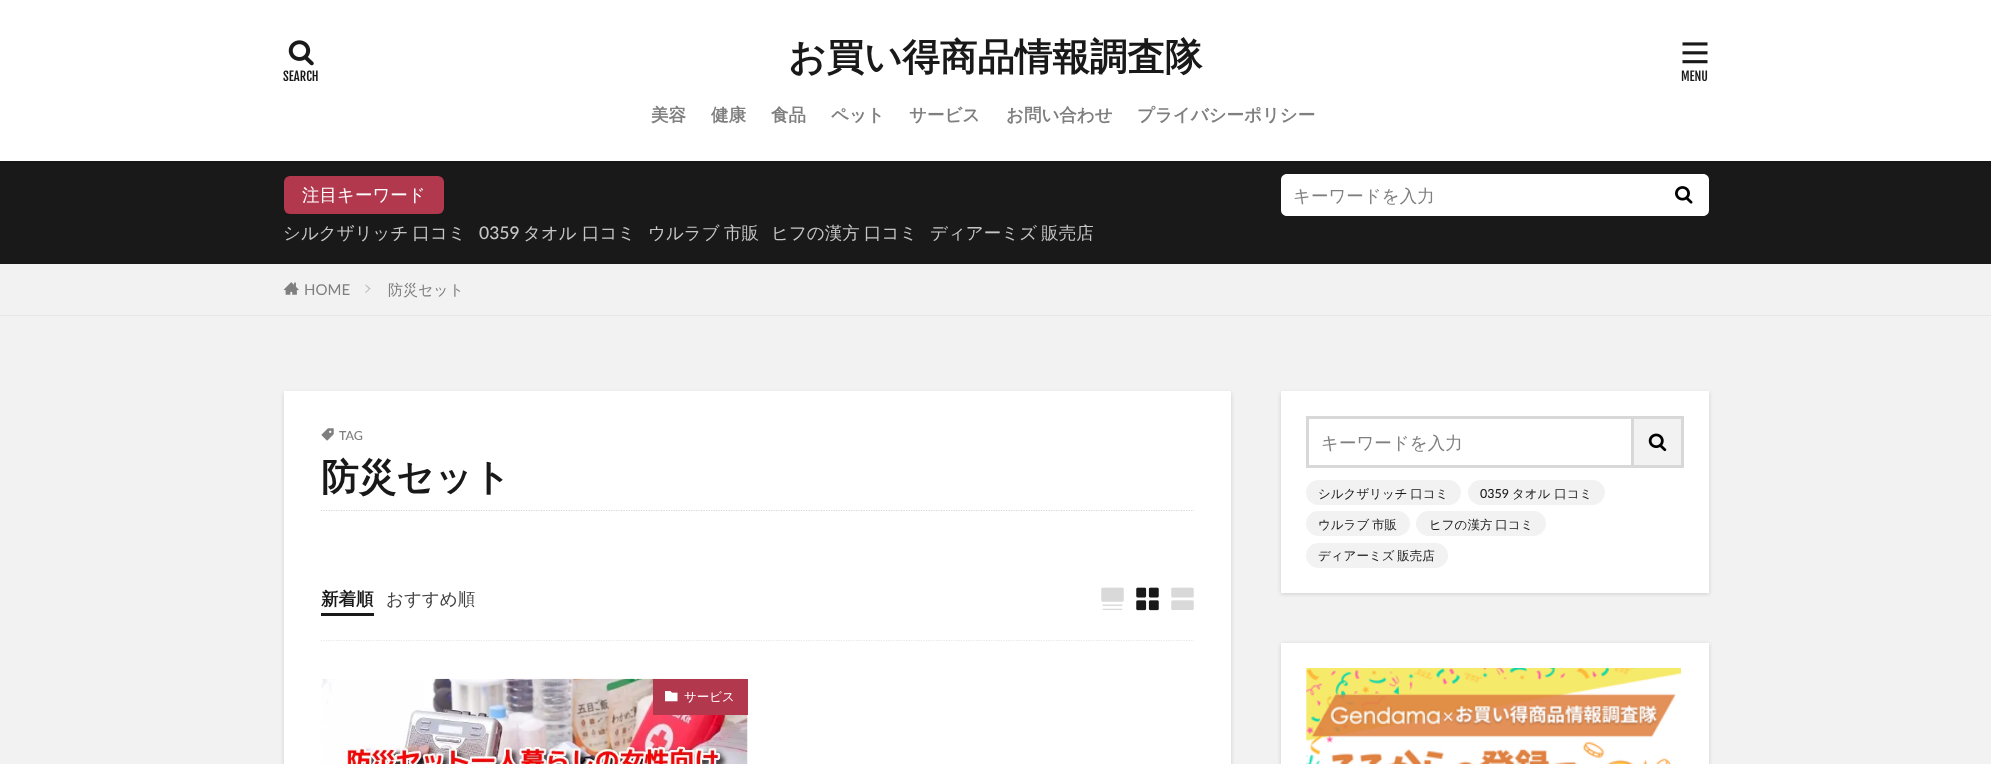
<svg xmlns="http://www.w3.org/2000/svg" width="1991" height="764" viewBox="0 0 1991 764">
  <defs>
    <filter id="blur1" x="-50%" y="-200%" width="200%" height="500%"><feGaussianBlur stdDeviation="1"/></filter>
    <filter id="blur2" x="-50%" y="-200%" width="200%" height="500%"><feGaussianBlur stdDeviation="2"/></filter>
  </defs>
  <rect width="100%" height="100%" fill="#f2f2f2"/>
  <rect x="0" y="161" width="1991" height="103" fill="#191919"/>
  <rect x="0" y="1" width="1991" height="162" fill="#000000" fill-opacity="0.15" filter="url(#blur1)"/>
  <rect x="0" y="0" width="1991" height="161" fill="#ffffff"/>
  <image x="288" y="40" width="26" height="26" href="img1.png"/>
  <text x="283" y="81" font-family="Fjalla One" font-size="12.5" fill="#191919">SEARCH</text>
  <text x="788" y="70" font-family="WenQuanYi Zen Hei" font-size="37.5" font-weight="bold" fill="#191919">お買い得商品情報調査隊</text>
  <image x="1682" y="42" width="26" height="22" href="img2.png"/>
  <text x="1681" y="81" font-family="Fjalla One" font-size="12.5" fill="#191919">MENU</text>
  <text x="651" y="121" font-family="WenQuanYi Zen Hei" font-size="17.5" font-weight="bold" fill="#7f7f7f">美容</text>
  <text x="711" y="121" font-family="WenQuanYi Zen Hei" font-size="17.5" font-weight="bold" fill="#7f7f7f">健康</text>
  <text x="771" y="121" font-family="WenQuanYi Zen Hei" font-size="17.5" font-weight="bold" fill="#7f7f7f">食品</text>
  <text x="831" y="121" font-family="WenQuanYi Zen Hei" font-size="17.5" font-weight="bold" fill="#7f7f7f">ペット</text>
  <text x="909" y="121" font-family="WenQuanYi Zen Hei" font-size="17.5" font-weight="bold" fill="#7f7f7f">サービス</text>
  <text x="1006" y="121" font-family="WenQuanYi Zen Hei" font-size="17.5" font-weight="bold" fill="#7f7f7f">お問い合わせ</text>
  <text x="1137" y="121" font-family="WenQuanYi Zen Hei" font-size="17.5" font-weight="bold" fill="#7f7f7f">プライバシーポリシー</text>
  <rect x="284" y="176" width="160" height="38" rx="6" fill="#b2384e"/>
  <text x="302" y="201" font-family="WenQuanYi Zen Hei" font-size="17.5" font-weight="500" fill="#ffffff">注目キーワード</text>
  <text x="283" y="239" word-spacing="-1" font-family="WenQuanYi Zen Hei" font-size="17.5" font-weight="500" fill="#c6c6c6">シルクザリッチ 口コミ</text>
  <text x="479" y="239" font-family="Lato" font-size="17.5" font-weight="500" fill="#c6c6c6">0359</text>
  <text x="523" y="239" font-family="WenQuanYi Zen Hei" font-size="17.5" font-weight="500" fill="#c6c6c6">タオル 口コミ</text>
  <text x="648" y="239" word-spacing="-1" font-family="WenQuanYi Zen Hei" font-size="17.5" font-weight="500" fill="#c6c6c6">ウルラブ 市販</text>
  <text x="771" y="239" word-spacing="-1" font-family="WenQuanYi Zen Hei" font-size="17.5" font-weight="500" fill="#c6c6c6">ヒフの漢方 口コミ</text>
  <text x="930" y="239" word-spacing="-1" font-family="WenQuanYi Zen Hei" font-size="17.5" font-weight="500" fill="#c6c6c6">ディアーミズ 販売店</text>
  <path d="M1287 174H1659V216H1287C1283.5 216 1281 213.5 1281 210V180C1281 176.5 1283.5 174 1287 174Z" fill="#ffffff"/>
  <text x="1293" y="202" font-family="WenQuanYi Zen Hei" font-size="17.5" font-weight="500" fill="#7f7f7f">キーワードを入力</text>
  <path d="M1659 174H1703C1706.5 174 1709 176.5 1709 180V210C1709 213.5 1706.5 216 1703 216H1659Z" fill="#ffffff"/>
  <image x="1675" y="186" width="18" height="18" href="img3.png"/>
  <rect x="0" y="315" width="1991" height="1" fill="#e6e6e6"/>
  <image x="283" y="282" width="16" height="13" href="img4.png"/>
  <text x="304" y="295" font-family="Lato" font-size="15" fill="#7f7f7f">HOME</text>
  <path d="M366 284.5L370.5 288.5L369.5 289.5L365 285Z" fill="#bfbfbf"/>
  <path d="M369.5 288L370.5 288.5L366 293L365 292.5Z" fill="#bfbfbf"/>
  <text x="388" y="295" font-family="WenQuanYi Zen Hei" font-size="15" font-weight="500" fill="#7f7f7f">防災セット</text>
  <rect x="284" y="393" width="947" height="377" fill="#000000" fill-opacity="0.15" filter="url(#blur2)"/>
  <rect x="284" y="391" width="947" height="373" fill="#ffffff"/>
  <image x="321" y="428" width="13" height="13" href="img5.png"/>
  <text x="339" y="440" font-family="Lato" font-size="12.5" font-weight="500" fill="#7f7f7f">TAG</text>
  <path d="M321 510.5H1194" fill="none" stroke="#d8d8d8" stroke-width="1.2" stroke-dasharray="1.25 1.25"/>
  <text x="321" y="490" font-family="WenQuanYi Zen Hei" font-size="37.5" font-weight="bold" fill="#191919">防災セット</text>
  <path d="M321 640.5H1194" fill="none" stroke="#e6e6e6" stroke-width="1.2" stroke-dasharray="1.25 1.25"/>
  <text x="321" y="605" font-family="WenQuanYi Zen Hei" font-size="17.5" font-weight="bold" fill="#191919">新着順</text>
  <rect x="321" y="613" width="53" height="3" fill="#191919"/>
  <text x="386" y="605" font-family="WenQuanYi Zen Hei" font-size="17.5" font-weight="500" fill="#3f3f3f">おすすめ順</text>
  <image x="1101" y="587" width="23" height="23" href="img6.png"/>
  <image x="1136" y="587" width="23" height="24" href="img7.png"/>
  <image x="1171" y="587" width="23" height="23" href="img8.png"/>
  <image x="321" y="678" width="427" height="86" href="img9.png"/>
  <rect x="653" y="679" width="95" height="36" fill="#b2384e"/>
  <image x="665" y="691" width="13" height="11" href="img10.png"/>
  <text x="684" y="701" font-family="WenQuanYi Zen Hei" font-size="12.5" font-weight="500" fill="#ffffff">サービス</text>
  <rect x="1281" y="393" width="428" height="201" fill="#000000" fill-opacity="0.15" filter="url(#blur2)"/>
  <rect x="1281" y="391" width="428" height="202" fill="#ffffff"/>
  <rect x="1307.5" y="417.5" width="325" height="49" fill="none" stroke="#d8d8d8" stroke-width="3"/>
  <text x="1321" y="449" font-family="WenQuanYi Zen Hei" font-size="17.5" font-weight="500" fill="#7f7f7f">キーワードを入力</text>
  <rect x="1634" y="419" width="47" height="46" fill="#f2f2f2"/>
  <rect x="1634" y="416" width="50" height="3" fill="#d8d8d8"/>
  <rect x="1681" y="416" width="3" height="52" fill="#d8d8d8"/>
  <rect x="1634" y="465" width="50" height="3" fill="#d8d8d8"/>
  <image x="1648" y="433" width="19" height="19" href="img11.png"/>
  <rect x="1306" y="480" width="155" height="25" rx="12.5" fill="#f2f2f2"/>
  <text x="1318" y="498" word-spacing="-1" font-family="WenQuanYi Zen Hei" font-size="12.5" font-weight="500" fill="#191919">シルクザリッチ 口コミ</text>
  <rect x="1468" y="480" width="137" height="25" rx="12.5" fill="#f2f2f2"/>
  <text x="1480" y="498" font-family="Lato" font-size="12.5" font-weight="500" fill="#191919">0359</text>
  <text x="1512" y="498" font-family="WenQuanYi Zen Hei" font-size="12.5" font-weight="500" fill="#191919">タオル 口コミ</text>
  <rect x="1306" y="511" width="104" height="25" rx="12.5" fill="#f2f2f2"/>
  <text x="1318" y="529" word-spacing="-1" font-family="WenQuanYi Zen Hei" font-size="12.5" font-weight="500" fill="#191919">ウルラブ 市販</text>
  <rect x="1416" y="511" width="130" height="25" rx="12.5" fill="#f2f2f2"/>
  <text x="1429" y="529" word-spacing="-1" font-family="WenQuanYi Zen Hei" font-size="12.5" font-weight="500" fill="#191919">ヒフの漢方 口コミ</text>
  <rect x="1306" y="543" width="142" height="25" rx="12.5" fill="#f2f2f2"/>
  <text x="1318" y="560" word-spacing="-1" font-family="WenQuanYi Zen Hei" font-size="12.5" font-weight="500" fill="#191919">ディアーミズ 販売店</text>
  <rect x="1281" y="644" width="428" height="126" fill="#000000" fill-opacity="0.15" filter="url(#blur2)"/>
  <rect x="1281" y="643" width="428" height="121" fill="#ffffff"/>
  <image x="1306" y="668" width="375" height="96" href="img12.png"/>
</svg>
